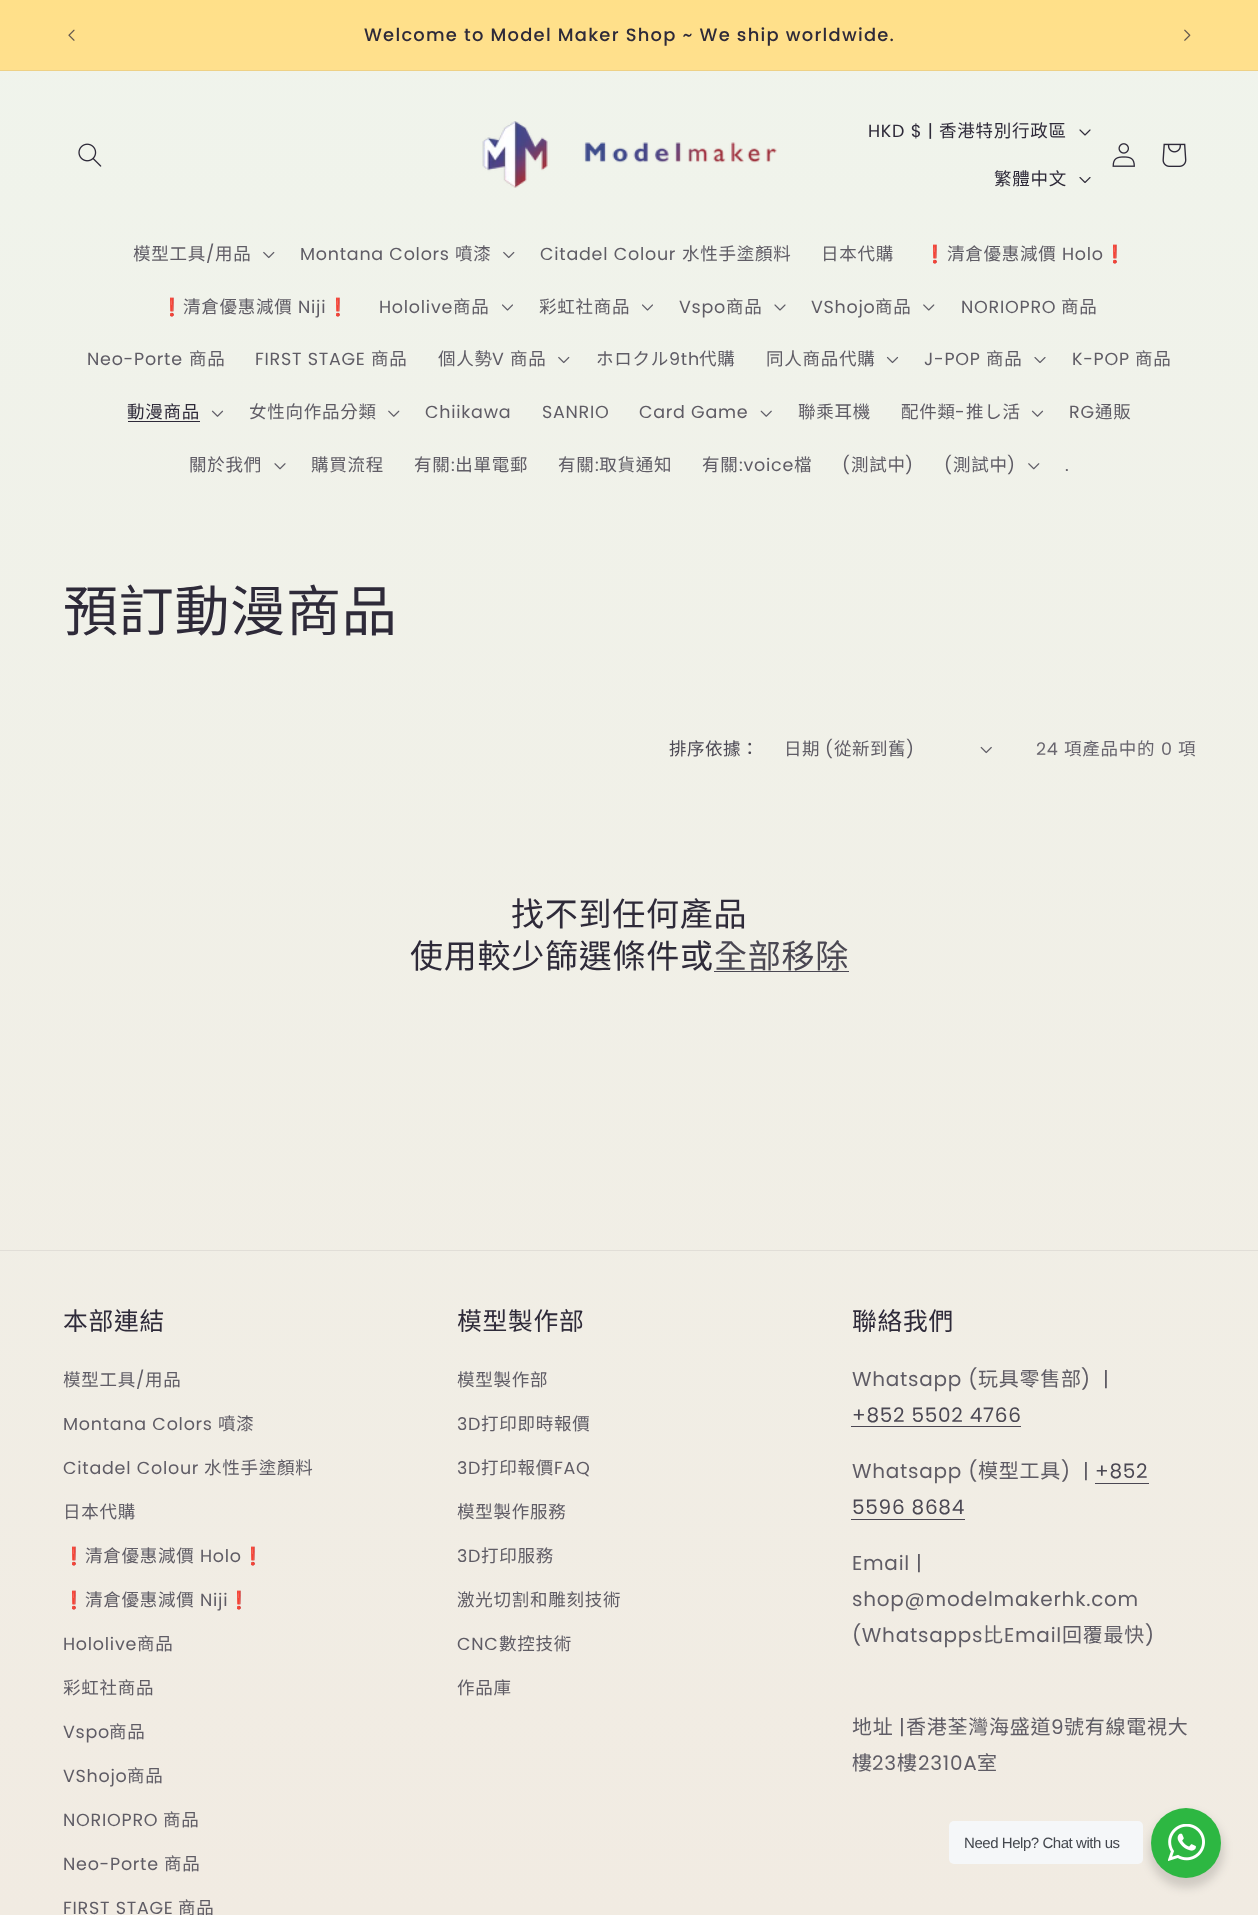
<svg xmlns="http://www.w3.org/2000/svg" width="1258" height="1915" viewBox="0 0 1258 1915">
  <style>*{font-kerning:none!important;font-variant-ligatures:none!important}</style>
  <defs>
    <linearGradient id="g1" gradientUnits="userSpaceOnUse" x1="629" y1="0" x2="629" y2="1915"><stop offset="0" stop-color="#f0f4ec"/><stop offset="1" stop-color="#f1ebe2"/></linearGradient>
    <linearGradient id="g2" gradientUnits="userSpaceOnUse" x1="629" y1="1915" x2="629" y2="0"><stop offset="0" stop-color="#ffe5e5"/><stop offset="0.25" stop-color="#ffe0da"/><stop offset="1" stop-color="#ffe089"/></linearGradient>
    <filter id="blur1" x="-50%" y="-200%" width="200%" height="500%"><feGaussianBlur stdDeviation="5"/></filter>
  </defs>
  <rect width="100%" height="100%" fill="#ffffff"/>
  <rect x="0" y="71" width="1258" height="1844" fill="url(#g1)"/>
  <rect x="0" y="0" width="1258" height="70" fill="url(#g2)"/>
  <rect x="0" y="70" width="1258" height="1" fill="#eed186"/>
  <image x="68" y="29" width="7" height="12" href="img1.png"/>
  <text x="364" y="41" font-family="Poppins" font-size="17.9" font-weight="500" letter-spacing="1.25" fill="#2e2a39">Welcome to Model Maker Shop ~ We ship worldwide.</text>
  <image x="1184" y="29" width="7" height="12" href="img2.png"/>
  <image x="78" y="143" width="24" height="24" href="img3.png"/>
  <image x="482" y="121" width="295" height="67" href="img4.png"/>
  <text x="868" y="137" font-family="Poppins" font-size="17.5" letter-spacing="0.75" fill="#2e2a39">HKD $ |</text>
  <text x="939" y="137" font-family="Noto Sans CJK TC" font-size="17.5" letter-spacing="0.75" fill="#2e2a39">香港特別行政區</text>
  <image x="1079" y="129" width="12" height="7" href="img5.png"/>
  <text x="994" y="185" font-family="Noto Sans CJK TC" font-size="17.5" letter-spacing="0.75" fill="#2e2a39">繁體中文</text>
  <image x="1079" y="177" width="12" height="6" href="img6.png"/>
  <image x="1112" y="143" width="23" height="24" href="img7.png"/>
  <image x="1162" y="143" width="25" height="24" href="img8.png"/>
  <text x="133" y="260" font-family="Noto Sans CJK TC" font-size="17.5" letter-spacing="0.75" fill="#5f5c65">模型工具</text>
  <text x="206" y="260" font-family="Poppins" font-size="17.5" letter-spacing="0.75" fill="#5f5c65">/</text>
  <text x="215" y="260" font-family="Noto Sans CJK TC" font-size="17.5" letter-spacing="0.75" fill="#5f5c65">用品</text>
  <image x="263" y="251" width="12" height="8" href="img9.png"/>
  <text x="300" y="260" font-family="Poppins" font-size="17.5" letter-spacing="0.75" fill="#5f5c65">Montana Colors</text>
  <text x="455" y="260" font-family="Noto Sans CJK TC" font-size="17.5" letter-spacing="0.75" fill="#5f5c65">噴漆</text>
  <image x="503" y="251" width="12" height="8" href="img9.png"/>
  <text x="540" y="260" font-family="Poppins" font-size="17.5" letter-spacing="0.75" fill="#5f5c65">Citadel Colour</text>
  <text x="682" y="260" font-family="Noto Sans CJK TC" font-size="17.5" letter-spacing="0.75" fill="#5f5c65">水性手塗顏料</text>
  <text x="821" y="260" font-family="Noto Sans CJK TC" font-size="17.5" letter-spacing="0.75" fill="#5f5c65">日本代購</text>
  <text x="924" y="260" font-family="Noto Color Emoji" font-size="17.5" letter-spacing="0.75" fill="#5f5c65">❗</text>
  <text x="947" y="260" font-family="Noto Sans CJK TC" font-size="17.5" letter-spacing="0.75" fill="#5f5c65">清倉優惠減價</text>
  <text x="1062" y="260" font-family="Poppins" font-size="17.5" letter-spacing="0.75" fill="#5f5c65">Holo</text>
  <text x="1104" y="260" font-family="Noto Color Emoji" font-size="17.5" letter-spacing="0.75" fill="#5f5c65">❗</text>
  <text x="161" y="313" font-family="Noto Color Emoji" font-size="17.5" letter-spacing="0.75" fill="#5f5c65">❗</text>
  <text x="183" y="313" font-family="Noto Sans CJK TC" font-size="17.5" letter-spacing="0.75" fill="#5f5c65">清倉優惠減價</text>
  <text x="298" y="313" font-family="Poppins" font-size="17.5" letter-spacing="0.75" fill="#5f5c65">Niji</text>
  <text x="327" y="313" font-family="Noto Color Emoji" font-size="17.5" letter-spacing="0.75" fill="#5f5c65">❗</text>
  <text x="379" y="313" font-family="Poppins" font-size="17.5" letter-spacing="0.75" fill="#5f5c65">Hololive</text>
  <text x="453" y="313" font-family="Noto Sans CJK TC" font-size="17.5" letter-spacing="0.75" fill="#5f5c65">商品</text>
  <image x="502" y="304" width="11" height="7" href="img10.png"/>
  <text x="539" y="313" font-family="Noto Sans CJK TC" font-size="17.5" letter-spacing="0.75" fill="#5f5c65">彩虹社商品</text>
  <image x="642" y="304" width="11" height="7" href="img10.png"/>
  <text x="679" y="313" font-family="Poppins" font-size="17.5" letter-spacing="0.75" fill="#5f5c65">Vspo</text>
  <text x="726" y="313" font-family="Noto Sans CJK TC" font-size="17.5" letter-spacing="0.75" fill="#5f5c65">商品</text>
  <image x="774" y="304" width="12" height="7" href="img11.png"/>
  <text x="811" y="313" font-family="Poppins" font-size="17.5" letter-spacing="0.75" fill="#5f5c65">VShojo</text>
  <text x="875" y="313" font-family="Noto Sans CJK TC" font-size="17.5" letter-spacing="0.75" fill="#5f5c65">商品</text>
  <image x="923" y="304" width="12" height="7" href="img12.png"/>
  <text x="961" y="313" font-family="Poppins" font-size="17.5" letter-spacing="0.75" fill="#5f5c65">NORIOPRO</text>
  <text x="1061" y="313" font-family="Noto Sans CJK TC" font-size="17.5" letter-spacing="0.75" fill="#5f5c65">商品</text>
  <text x="87" y="365" font-family="Poppins" font-size="17.5" letter-spacing="0.75" fill="#5f5c65">Neo-Porte</text>
  <text x="189" y="365" font-family="Noto Sans CJK TC" font-size="17.5" letter-spacing="0.75" fill="#5f5c65">商品</text>
  <text x="255" y="365" font-family="Poppins" font-size="17.5" letter-spacing="0.75" fill="#5f5c65">FIRST STAGE</text>
  <text x="371" y="365" font-family="Noto Sans CJK TC" font-size="17.5" letter-spacing="0.75" fill="#5f5c65">商品</text>
  <text x="438" y="365" font-family="Noto Sans CJK TC" font-size="17.5" letter-spacing="0.75" fill="#5f5c65">個人勢</text>
  <text x="492" y="365" font-family="Poppins" font-size="17.5" letter-spacing="0.75" fill="#5f5c65">V</text>
  <text x="510" y="365" font-family="Noto Sans CJK TC" font-size="17.5" letter-spacing="0.75" fill="#5f5c65">商品</text>
  <image x="558" y="356" width="12" height="8" href="img13.png"/>
  <text x="596" y="365" font-family="Noto Sans CJK TC" font-size="17.5" letter-spacing="0.75" fill="#5f5c65">ホロクル</text>
  <text x="669" y="365" font-family="Poppins" font-size="17.5" letter-spacing="0.75" fill="#5f5c65">9th</text>
  <text x="699" y="365" font-family="Noto Sans CJK TC" font-size="17.5" letter-spacing="0.75" fill="#5f5c65">代購</text>
  <text x="766" y="365" font-family="Noto Sans CJK TC" font-size="17.5" letter-spacing="0.75" fill="#5f5c65">同人商品代購</text>
  <image x="886" y="356" width="13" height="8" href="img14.png"/>
  <text x="924" y="365" font-family="Poppins" font-size="17.5" letter-spacing="0.75" fill="#5f5c65">J-POP</text>
  <text x="986" y="365" font-family="Noto Sans CJK TC" font-size="17.5" letter-spacing="0.75" fill="#5f5c65">商品</text>
  <image x="1034" y="357" width="12" height="6" href="img15.png"/>
  <text x="1072" y="365" font-family="Poppins" font-size="17.5" letter-spacing="0.75" fill="#5f5c65">K-POP</text>
  <text x="1135" y="365" font-family="Noto Sans CJK TC" font-size="17.5" letter-spacing="0.75" fill="#5f5c65">商品</text>
  <text x="127" y="418" font-family="Noto Sans CJK TC" font-size="17.5" letter-spacing="0.75" fill="#2e2a39">動漫商品</text>
  <rect x="128" y="421" width="72" height="1" fill="#2e2a39"/>
  <image x="211" y="410" width="13" height="7" href="img16.png"/>
  <text x="249" y="418" font-family="Noto Sans CJK TC" font-size="17.5" letter-spacing="0.75" fill="#5f5c65">女性向作品分類</text>
  <image x="388" y="410" width="12" height="7" href="img17.png"/>
  <text x="425" y="418" font-family="Poppins" font-size="17.5" letter-spacing="0.75" fill="#5f5c65">Chiikawa</text>
  <text x="542" y="418" font-family="Poppins" font-size="17.5" letter-spacing="0.75" fill="#5f5c65">SANRIO</text>
  <text x="639" y="418" font-family="Poppins" font-size="17.5" letter-spacing="0.75" fill="#5f5c65">Card Game</text>
  <image x="760" y="410" width="12" height="7" href="img18.png"/>
  <text x="798" y="418" font-family="Noto Sans CJK TC" font-size="17.5" letter-spacing="0.75" fill="#5f5c65">聯乘耳機</text>
  <text x="901" y="418" font-family="Noto Sans CJK TC" font-size="17.5" letter-spacing="0.75" fill="#5f5c65">配件類</text>
  <text x="955" y="418" font-family="Poppins" font-size="17.5" letter-spacing="0.75" fill="#5f5c65">-</text>
  <text x="966" y="418" font-family="Noto Sans CJK TC" font-size="17.5" letter-spacing="0.75" fill="#5f5c65">推し活</text>
  <image x="1031" y="410" width="13" height="7" href="img16.png"/>
  <text x="1069" y="418" font-family="Poppins" font-size="17.5" letter-spacing="0.75" fill="#5f5c65">RG</text>
  <text x="1095" y="418" font-family="Noto Sans CJK TC" font-size="17.5" letter-spacing="0.75" fill="#5f5c65">通販</text>
  <text x="189" y="471" font-family="Noto Sans CJK TC" font-size="17.5" letter-spacing="0.75" fill="#5f5c65">關於我們</text>
  <image x="274" y="463" width="12" height="7" href="img19.png"/>
  <text x="311" y="471" font-family="Noto Sans CJK TC" font-size="17.5" letter-spacing="0.75" fill="#5f5c65">購買流程</text>
  <text x="414" y="471" font-family="Noto Sans CJK TC" font-size="17.5" letter-spacing="0.75" fill="#5f5c65">有關 出單電郵</text>
  <text x="451" y="471" font-family="Poppins" font-size="17.5" letter-spacing="0.75" fill="#5f5c65">:</text>
  <text x="558" y="471" font-family="Noto Sans CJK TC" font-size="17.5" letter-spacing="0.75" fill="#5f5c65">有關 取貨通知</text>
  <text x="595" y="471" font-family="Poppins" font-size="17.5" letter-spacing="0.75" fill="#5f5c65">:</text>
  <text x="702" y="471" font-family="Noto Sans CJK TC" font-size="17.5" letter-spacing="0.75" fill="#5f5c65">有關</text>
  <text x="739" y="471" font-family="Poppins" font-size="17.5" letter-spacing="0.75" fill="#5f5c65">:voice</text>
  <text x="794" y="471" font-family="Noto Sans CJK TC" font-size="17.5" letter-spacing="0.75" fill="#5f5c65">檔</text>
  <text x="842" y="471" font-family="Poppins" font-size="17.5" letter-spacing="0.75" fill="#5f5c65">(</text>
  <text x="851" y="471" font-family="Noto Sans CJK TC" font-size="17.5" letter-spacing="0.75" fill="#5f5c65">測試中</text>
  <text x="905" y="471" font-family="Poppins" font-size="17.5" letter-spacing="0.75" fill="#5f5c65">)</text>
  <text x="944" y="471" font-family="Poppins" font-size="17.5" letter-spacing="0.75" fill="#5f5c65">(</text>
  <text x="953" y="471" font-family="Noto Sans CJK TC" font-size="17.5" letter-spacing="0.75" fill="#5f5c65">測試中</text>
  <text x="1007" y="471" font-family="Poppins" font-size="17.5" letter-spacing="0.75" fill="#5f5c65">)</text>
  <image x="1028" y="463" width="12" height="7" href="img20.png"/>
  <text x="1065" y="471" font-family="Poppins" font-size="17.5" letter-spacing="0.75" fill="#5f5c65">.</text>
  <text x="63" y="631" font-family="Noto Sans CJK TC" font-size="55" letter-spacing="0.75" fill="#2e2a39">預訂動漫商品</text>
  <text x="669" y="755" font-family="Noto Sans CJK TC" font-size="17.5" letter-spacing="0.5" fill="#4b4853">排序依據：</text>
  <text x="784" y="755" font-family="Noto Sans CJK TC" font-size="17.5" letter-spacing="0.5" fill="#5f5c65">日期</text>
  <text x="825" y="755" font-family="Poppins" font-size="17.5" letter-spacing="0.5" fill="#5f5c65">(</text>
  <text x="834" y="755" font-family="Noto Sans CJK TC" font-size="17.5" letter-spacing="0.5" fill="#5f5c65">從新到舊</text>
  <text x="906" y="755" font-family="Poppins" font-size="17.5" letter-spacing="0.5" fill="#5f5c65">)</text>
  <image x="980" y="746" width="12" height="8" href="img21.png"/>
  <text x="1036" y="755" font-family="Poppins" font-size="17.5" letter-spacing="0.75" fill="#68656e">24</text>
  <text x="1064" y="755" font-family="Noto Sans CJK TC" font-size="17.5" letter-spacing="0.75" fill="#68656e">項產品中的</text>
  <text x="1161" y="755" font-family="Poppins" font-size="17.5" letter-spacing="0.75" fill="#68656e">0</text>
  <text x="1178" y="755" font-family="Noto Sans CJK TC" font-size="17.5" letter-spacing="0.75" fill="#68656e">項</text>
  <text x="511" y="926" font-family="Noto Sans CJK TC" font-size="33" letter-spacing="0.75" fill="#2e2a39">找不到任何產品</text>
  <text x="410" y="968" font-family="Noto Sans CJK TC" font-size="33" letter-spacing="0.75" fill="#2e2a39">使用較少篩選條件或</text>
  <text x="714" y="968" font-family="Noto Sans CJK TC" font-size="33" letter-spacing="0.75" fill="#4b4853">全部移除</text>
  <rect x="714" y="971" width="135" height="1" fill="#4b4853"/>
  <rect x="0" y="1250" width="1258" height="1" fill="#e1ded7"/>
  <text x="63" y="1330" font-family="Noto Sans CJK TC" font-size="24.75" letter-spacing="0.75" fill="#2e2a39">本部連結</text>
  <text x="63" y="1386" font-family="Noto Sans CJK TC" font-size="17.5" letter-spacing="0.75" fill="#5f5c65">模型工具</text>
  <text x="136" y="1386" font-family="Poppins" font-size="17.5" letter-spacing="0.75" fill="#5f5c65">/</text>
  <text x="145" y="1386" font-family="Noto Sans CJK TC" font-size="17.5" letter-spacing="0.75" fill="#5f5c65">用品</text>
  <text x="63" y="1430" font-family="Poppins" font-size="17.5" letter-spacing="0.75" fill="#5f5c65">Montana Colors</text>
  <text x="218" y="1430" font-family="Noto Sans CJK TC" font-size="17.5" letter-spacing="0.75" fill="#5f5c65">噴漆</text>
  <text x="63" y="1474" font-family="Poppins" font-size="17.5" letter-spacing="0.75" fill="#5f5c65">Citadel Colour</text>
  <text x="204" y="1474" font-family="Noto Sans CJK TC" font-size="17.5" letter-spacing="0.75" fill="#5f5c65">水性手塗顏料</text>
  <text x="63" y="1518" font-family="Noto Sans CJK TC" font-size="17.5" letter-spacing="0.75" fill="#5f5c65">日本代購</text>
  <text x="63" y="1562" font-family="Noto Color Emoji" font-size="17.5" letter-spacing="0.75" fill="#5f5c65">❗</text>
  <text x="85" y="1562" font-family="Noto Sans CJK TC" font-size="17.5" letter-spacing="0.75" fill="#5f5c65">清倉優惠減價</text>
  <text x="200" y="1562" font-family="Poppins" font-size="17.5" letter-spacing="0.75" fill="#5f5c65">Holo</text>
  <text x="242" y="1562" font-family="Noto Color Emoji" font-size="17.5" letter-spacing="0.75" fill="#5f5c65">❗</text>
  <text x="63" y="1606" font-family="Noto Color Emoji" font-size="17.5" letter-spacing="0.75" fill="#5f5c65">❗</text>
  <text x="85" y="1606" font-family="Noto Sans CJK TC" font-size="17.5" letter-spacing="0.75" fill="#5f5c65">清倉優惠減價</text>
  <text x="200" y="1606" font-family="Poppins" font-size="17.5" letter-spacing="0.75" fill="#5f5c65">Niji</text>
  <text x="228" y="1606" font-family="Noto Color Emoji" font-size="17.5" letter-spacing="0.75" fill="#5f5c65">❗</text>
  <text x="63" y="1650" font-family="Poppins" font-size="17.5" letter-spacing="0.75" fill="#5f5c65">Hololive</text>
  <text x="137" y="1650" font-family="Noto Sans CJK TC" font-size="17.5" letter-spacing="0.75" fill="#5f5c65">商品</text>
  <text x="63" y="1694" font-family="Noto Sans CJK TC" font-size="17.5" letter-spacing="0.75" fill="#5f5c65">彩虹社商品</text>
  <text x="63" y="1738" font-family="Poppins" font-size="17.5" letter-spacing="0.75" fill="#5f5c65">Vspo</text>
  <text x="109" y="1738" font-family="Noto Sans CJK TC" font-size="17.5" letter-spacing="0.75" fill="#5f5c65">商品</text>
  <text x="63" y="1782" font-family="Poppins" font-size="17.5" letter-spacing="0.75" fill="#5f5c65">VShojo</text>
  <text x="127" y="1782" font-family="Noto Sans CJK TC" font-size="17.5" letter-spacing="0.75" fill="#5f5c65">商品</text>
  <text x="63" y="1826" font-family="Poppins" font-size="17.5" letter-spacing="0.75" fill="#5f5c65">NORIOPRO</text>
  <text x="163" y="1826" font-family="Noto Sans CJK TC" font-size="17.5" letter-spacing="0.75" fill="#5f5c65">商品</text>
  <text x="63" y="1870" font-family="Poppins" font-size="17.5" letter-spacing="0.75" fill="#5f5c65">Neo-Porte</text>
  <text x="164" y="1870" font-family="Noto Sans CJK TC" font-size="17.5" letter-spacing="0.75" fill="#5f5c65">商品</text>
  <text x="63" y="1914" font-family="Poppins" font-size="17.5" letter-spacing="0.75" fill="#5f5c65">FIRST STAGE</text>
  <text x="178" y="1914" font-family="Noto Sans CJK TC" font-size="17.5" letter-spacing="0.75" fill="#5f5c65">商品</text>
  <text x="457" y="1330" font-family="Noto Sans CJK TC" font-size="24.75" letter-spacing="0.75" fill="#2e2a39">模型製作部</text>
  <text x="457" y="1386" font-family="Noto Sans CJK TC" font-size="17.5" letter-spacing="0.75" fill="#5f5c65">模型製作部</text>
  <text x="457" y="1430" font-family="Poppins" font-size="17.5" letter-spacing="0.75" fill="#5f5c65">3D</text>
  <text x="481" y="1430" font-family="Noto Sans CJK TC" font-size="17.5" letter-spacing="0.75" fill="#5f5c65">打印即時報價</text>
  <text x="457" y="1474" font-family="Poppins" font-size="17.5" letter-spacing="0.75" fill="#5f5c65">3D</text>
  <text x="481" y="1474" font-family="Noto Sans CJK TC" font-size="17.5" letter-spacing="0.75" fill="#5f5c65">打印報價</text>
  <text x="554" y="1474" font-family="Poppins" font-size="17.5" letter-spacing="0.75" fill="#5f5c65">FAQ</text>
  <text x="457" y="1518" font-family="Noto Sans CJK TC" font-size="17.5" letter-spacing="0.75" fill="#5f5c65">模型製作服務</text>
  <text x="457" y="1562" font-family="Poppins" font-size="17.5" letter-spacing="0.75" fill="#5f5c65">3D</text>
  <text x="481" y="1562" font-family="Noto Sans CJK TC" font-size="17.5" letter-spacing="0.75" fill="#5f5c65">打印服務</text>
  <text x="457" y="1606" font-family="Noto Sans CJK TC" font-size="17.5" letter-spacing="0.75" fill="#5f5c65">激光切割和雕刻技術</text>
  <text x="457" y="1650" font-family="Poppins" font-size="17.5" letter-spacing="0.75" fill="#5f5c65">CNC</text>
  <text x="499" y="1650" font-family="Noto Sans CJK TC" font-size="17.5" letter-spacing="0.75" fill="#5f5c65">數控技術</text>
  <text x="457" y="1694" font-family="Noto Sans CJK TC" font-size="17.5" letter-spacing="0.75" fill="#5f5c65">作品庫</text>
  <text x="852" y="1330" font-family="Noto Sans CJK TC" font-size="24.75" letter-spacing="0.75" fill="#2e2a39">聯絡我們</text>
  <text x="852" y="1386" font-family="Poppins" font-size="20" letter-spacing="0.75" fill="#5f5c65">Whatsapp (</text>
  <text x="978" y="1386" font-family="Noto Sans CJK TC" font-size="20" letter-spacing="0.75" fill="#5f5c65">玩具零售部</text>
  <text x="1081" y="1386" font-family="Poppins" font-size="20" letter-spacing="0.75" fill="#5f5c65" xml:space="preserve">)  |</text>
  <text x="852" y="1422" font-family="Poppins" font-size="20" letter-spacing="0.75" fill="#4b4853">+852 5502 4766</text>
  <rect x="851" y="1426" width="170" height="1" fill="#4b4753"/>
  <text x="852" y="1478" font-family="Poppins" font-size="20" letter-spacing="0.75" fill="#5f5c65">Whatsapp (</text>
  <text x="978" y="1478" font-family="Noto Sans CJK TC" font-size="20" letter-spacing="0.75" fill="#5f5c65">模型工具</text>
  <text x="1061" y="1478" font-family="Poppins" font-size="20" letter-spacing="0.75" fill="#5f5c65" xml:space="preserve">)  |</text>
  <text x="1095" y="1478" font-family="Poppins" font-size="20" letter-spacing="0.75" fill="#4b4853">+852</text>
  <rect x="1095" y="1483" width="54" height="1" fill="#4b4753"/>
  <text x="852" y="1514" font-family="Poppins" font-size="20" letter-spacing="0.75" fill="#4b4853">5596 8684</text>
  <rect x="851" y="1519" width="114" height="1" fill="#4b4753"/>
  <text x="852" y="1570" font-family="Poppins" font-size="20" letter-spacing="0.75" fill="#5f5c65">Email |</text>
  <text x="852" y="1606" font-family="Poppins" font-size="20" letter-spacing="0.75" fill="#5f5c65">shop@modelmakerhk.com</text>
  <text x="852" y="1642" font-family="Poppins" font-size="20" letter-spacing="0.75" fill="#5f5c65">(Whatsapps</text>
  <text x="983" y="1642" font-family="Noto Sans CJK TC" font-size="20" letter-spacing="0.75" fill="#5f5c65">比</text>
  <text x="1004" y="1642" font-family="Poppins" font-size="20" letter-spacing="0.75" fill="#5f5c65">Email</text>
  <text x="1062" y="1642" font-family="Noto Sans CJK TC" font-size="20" letter-spacing="0.75" fill="#5f5c65">回覆最快</text>
  <text x="1145" y="1642" font-family="Poppins" font-size="20" letter-spacing="0.75" fill="#5f5c65">)</text>
  <text x="852" y="1734" font-family="Noto Sans CJK TC" font-size="20" letter-spacing="0.75" fill="#5f5c65">地址</text>
  <text x="899" y="1734" font-family="Poppins" font-size="20" letter-spacing="0.75" fill="#5f5c65">|</text>
  <text x="906" y="1734" font-family="Noto Sans CJK TC" font-size="20" letter-spacing="0.75" fill="#5f5c65">香港荃灣海盛道</text>
  <text x="1051" y="1734" font-family="Poppins" font-size="20" letter-spacing="0.75" fill="#5f5c65">9</text>
  <text x="1064" y="1734" font-family="Noto Sans CJK TC" font-size="20" letter-spacing="0.75" fill="#5f5c65">號有線電視大</text>
  <text x="852" y="1770" font-family="Noto Sans CJK TC" font-size="20" letter-spacing="0.75" fill="#5f5c65">樓</text>
  <text x="872" y="1770" font-family="Poppins" font-size="20" letter-spacing="0.75" fill="#5f5c65">23</text>
  <text x="897" y="1770" font-family="Noto Sans CJK TC" font-size="20" letter-spacing="0.75" fill="#5f5c65">樓</text>
  <text x="918" y="1770" font-family="Poppins" font-size="20" letter-spacing="0.75" fill="#5f5c65">2310A</text>
  <text x="977" y="1770" font-family="Noto Sans CJK TC" font-size="20" letter-spacing="0.75" fill="#5f5c65">室</text>
  <rect x="1149" y="1813" width="75" height="75" rx="37.5" fill="#000000" fill-opacity="0.14" filter="url(#blur1)"/>
  <rect x="949" y="1821" width="194" height="43" rx="5" fill="#f5f7f9"/>
  <text x="964" y="1848" font-family="Liberation Sans" font-size="15" letter-spacing="-0.45" fill="#43474e">Need Help? Chat with us</text>
  <circle cx="1186" cy="1843" r="35" fill="#2db742"/>
  <image x="1168" y="1824" width="37" height="37" href="img22.png"/>
</svg>
